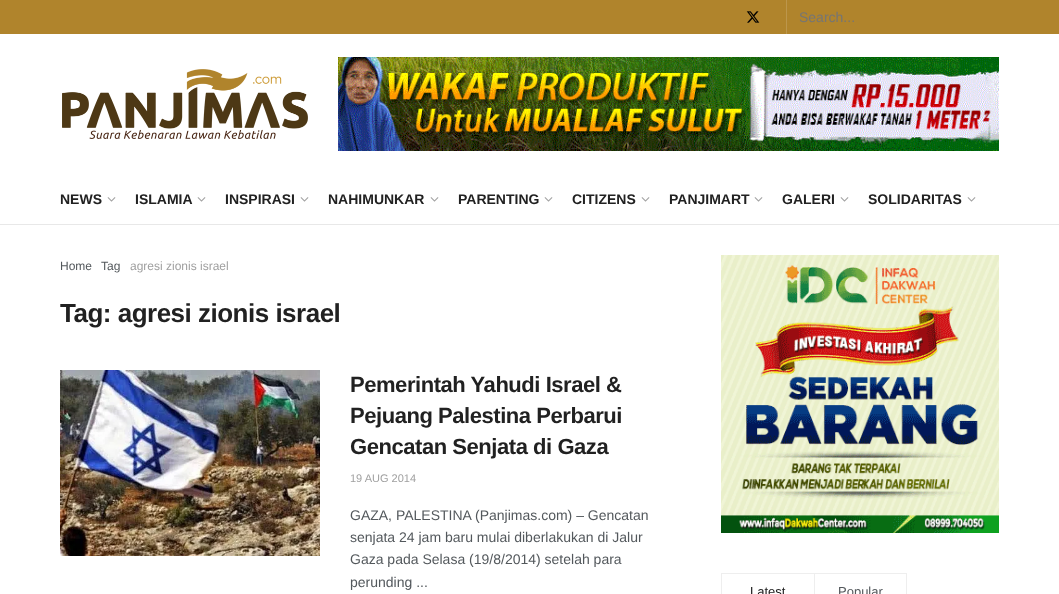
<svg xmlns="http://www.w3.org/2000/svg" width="1059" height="594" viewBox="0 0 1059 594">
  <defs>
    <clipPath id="clip1"><rect x="799" y="0" width="201" height="34" rx="17"/></clipPath>
  </defs>
  <rect width="100%" height="100%" fill="#ffffff"/>
  <rect x="0" y="0" width="1059" height="34" fill="#b0842c"/>
  <rect x="786" y="0" width="1" height="34" fill="#bc964c"/>
  <image x="746" y="11" width="14" height="12" href="img1.png"/>
  <g clip-path="url(#clip1)">
    <text x="799" y="22" font-family="Liberation Sans" font-size="14" fill="#757575">Search...</text>
  </g>
  <image x="62" y="69" width="246" height="70" href="img2.png"/>
  <image x="338" y="57" width="661" height="94" href="img3.png"/>
  <rect x="0" y="224" width="1059" height="1" fill="#e8e8e8"/>
  <text x="60" y="204" font-family="Liberation Sans" font-size="14" font-weight="bold" fill="#212121">NEWS</text>
  <image x="107" y="197" width="9" height="5" href="img4.png"/>
  <text x="135" y="204" font-family="Liberation Sans" font-size="14" font-weight="bold" fill="#212121">ISLAMIA</text>
  <image x="197" y="197" width="9" height="5" href="img4.png"/>
  <text x="225" y="204" font-family="Liberation Sans" font-size="14" font-weight="bold" fill="#212121">INSPIRASI</text>
  <image x="300" y="197" width="9" height="5" href="img4.png"/>
  <text x="328" y="204" font-family="Liberation Sans" font-size="14" font-weight="bold" fill="#212121">NAHIMUNKAR</text>
  <image x="430" y="197" width="9" height="5" href="img4.png"/>
  <text x="458" y="204" font-family="Liberation Sans" font-size="14" font-weight="bold" fill="#212121">PARENTING</text>
  <image x="544" y="197" width="9" height="5" href="img4.png"/>
  <text x="572" y="204" font-family="Liberation Sans" font-size="14" font-weight="bold" fill="#212121">CITIZENS</text>
  <image x="641" y="197" width="9" height="5" href="img4.png"/>
  <text x="669" y="204" font-family="Liberation Sans" font-size="14" font-weight="bold" fill="#212121">PANJIMART</text>
  <image x="754" y="197" width="9" height="5" href="img4.png"/>
  <text x="782" y="204" font-family="Liberation Sans" font-size="14" font-weight="bold" fill="#212121">GALERI</text>
  <image x="840" y="197" width="9" height="5" href="img4.png"/>
  <text x="868" y="204" font-family="Liberation Sans" font-size="14" font-weight="bold" fill="#212121">SOLIDARITAS</text>
  <image x="967" y="197" width="9" height="5" href="img4.png"/>
  <text x="60" y="270" font-family="Liberation Sans" font-size="12" fill="#53585c">Home</text>
  <text x="101" y="270" font-family="Liberation Sans" font-size="12" fill="#53585c">Tag</text>
  <text x="130" y="270" font-family="Liberation Sans" font-size="12" fill="#a0a0a0">agresi zionis israel</text>
  <text x="60" y="322" font-family="Liberation Sans" font-size="26" font-weight="bold" letter-spacing="-0.5" fill="#212121">Tag: agresi zionis israel</text>
  <image x="60" y="370" width="260" height="186" href="img5.png"/>
  <text x="350" y="392" font-family="Liberation Sans" font-size="22" font-weight="bold" letter-spacing="-0.45" fill="#212121">Pemerintah Yahudi Israel &amp;</text>
  <text x="350" y="423" font-family="Liberation Sans" font-size="22" font-weight="bold" letter-spacing="-0.45" fill="#212121">Pejuang Palestina Perbarui</text>
  <text x="350" y="454" font-family="Liberation Sans" font-size="22" font-weight="bold" letter-spacing="-0.45" fill="#212121">Gencatan Senjata di Gaza</text>
  <text x="350" y="482" font-family="Liberation Sans" font-size="11" fill="#a0a0a0">19 AUG 2014</text>
  <text x="350" y="520" font-family="Liberation Sans" font-size="14" fill="#53585c">GAZA, PALESTINA (Panjimas.com) – Gencatan</text>
  <text x="350" y="542" font-family="Liberation Sans" font-size="14" fill="#53585c">senjata 24 jam baru mulai diberlakukan di Jalur</text>
  <text x="350" y="564" font-family="Liberation Sans" font-size="14" fill="#53585c">Gaza pada Selasa (19/8/2014) setelah para</text>
  <text x="350" y="587" font-family="Liberation Sans" font-size="14" fill="#53585c">perunding ...</text>
  <image x="721" y="255" width="278" height="278" href="img6.png"/>
  <rect x="721" y="573" width="186" height="1" fill="#eeeeee"/>
  <path d="M721 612V573L722 574V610Z" fill="#eeeeee"/>
  <text x="750" y="596" font-family="Liberation Sans" font-size="13" fill="#212121">Latest</text>
  <rect x="906" y="573" width="1" height="21" fill="#eeeeee"/>
  <rect x="814" y="573" width="1" height="21" fill="#eeeeee"/>
  <text x="838" y="596" font-family="Liberation Sans" font-size="13" fill="#53585c">Popular</text>
</svg>
